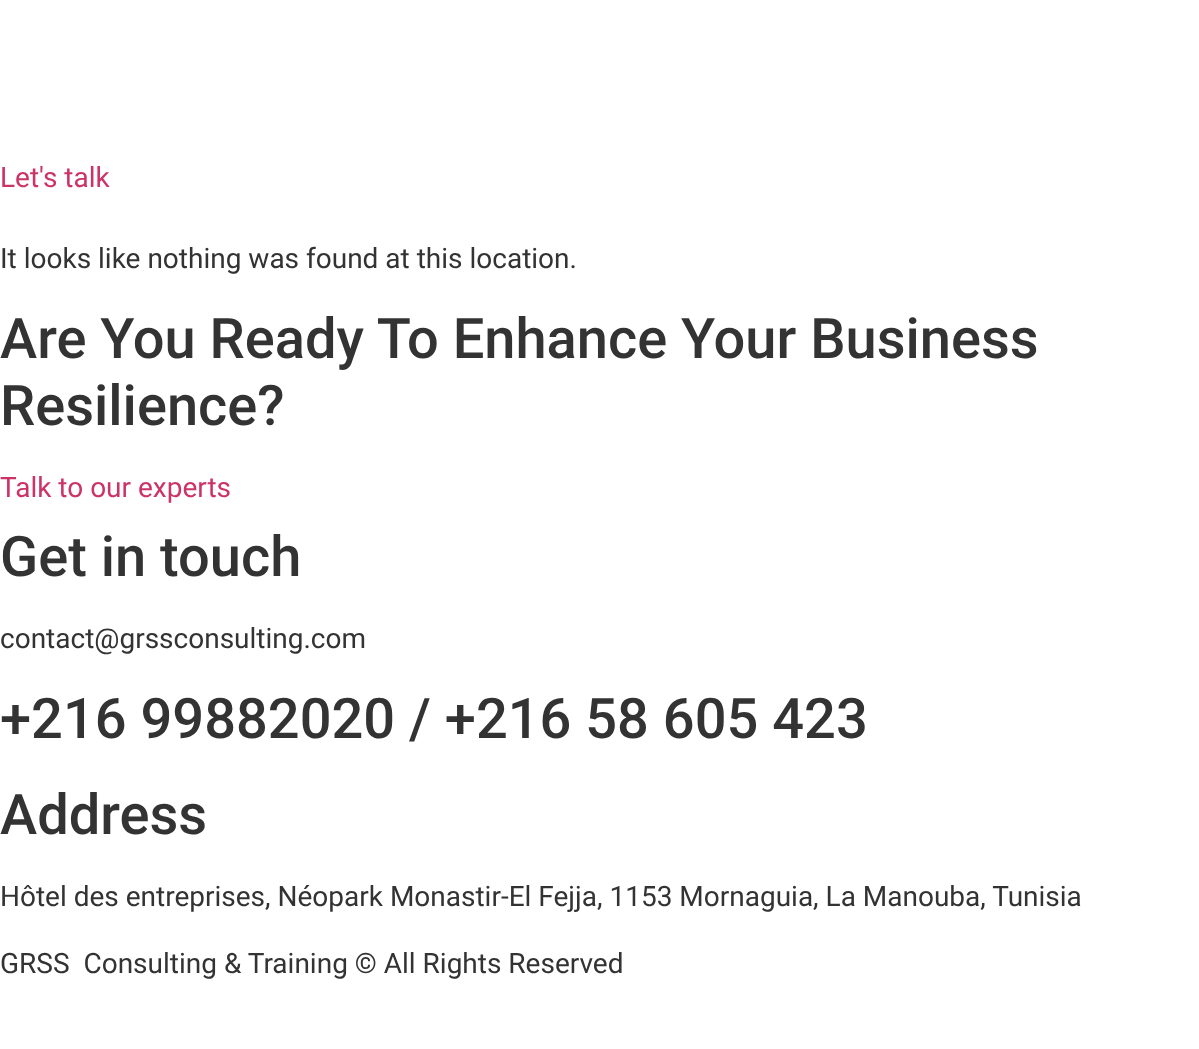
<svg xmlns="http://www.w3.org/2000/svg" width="1199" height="1049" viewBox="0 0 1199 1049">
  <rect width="100%" height="100%" fill="#ffffff"/>
  <text x="0" y="187" font-family="Roboto" font-size="28" fill="#cc3366">Let's talk</text>
  <text x="0" y="268" font-family="Roboto" font-size="28" fill="#333333">It looks like nothing was found at this location.</text>
  <text x="0" y="358" font-family="Roboto" font-size="56" font-weight="500" fill="#333333">Are You Ready To Enhance Your Business</text>
  <text x="0" y="425" font-family="Roboto" font-size="56" font-weight="500" fill="#333333">Resilience?</text>
  <text x="0" y="497" font-family="Roboto" font-size="28" fill="#cc3366">Talk to our experts</text>
  <text x="0" y="576" font-family="Roboto" font-size="56" font-weight="500" fill="#333333">Get in touch</text>
  <text x="0" y="648" font-family="Roboto" font-size="28" fill="#333333">contact@grssconsulting.com</text>
  <text x="0" y="738" font-family="Roboto" font-size="56" font-weight="500" fill="#333333">+216 99882020 / +216 58 605 423</text>
  <text x="0" y="834" font-family="Roboto" font-size="56" font-weight="500" fill="#333333">Address</text>
  <text x="0" y="906" font-family="Roboto" font-size="28" fill="#333333">Hôtel des entreprises, Néopark Monastir-El Fejja, 1153 Mornaguia, La Manouba, Tunisia</text>
  <text x="0" y="973" font-family="Roboto" font-size="28" fill="#333333" xml:space="preserve">GRSS  Consulting &amp; Training © All Rights Reserved</text>
</svg>
